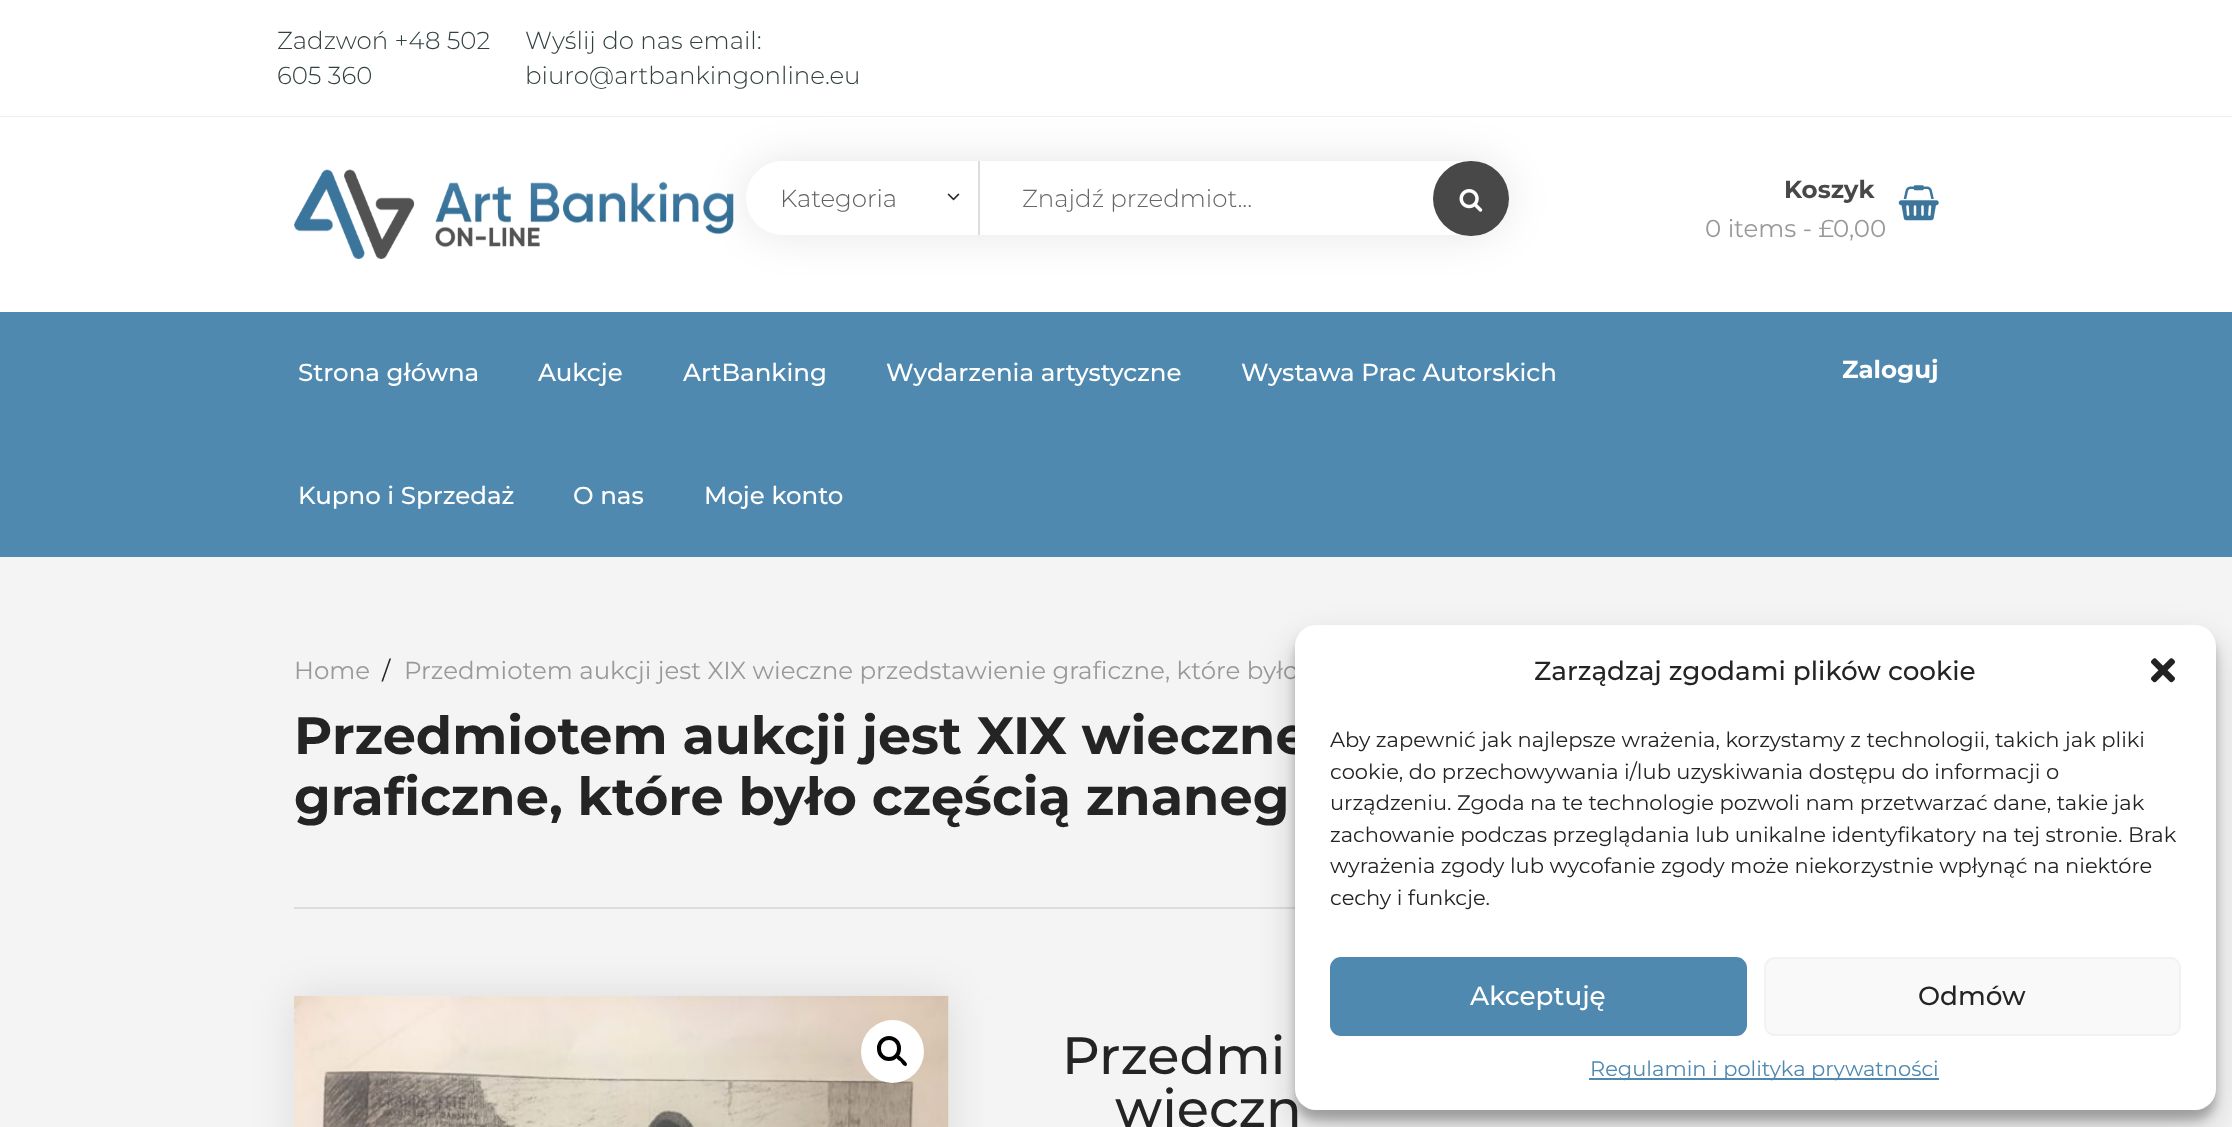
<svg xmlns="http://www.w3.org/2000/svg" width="2232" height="1127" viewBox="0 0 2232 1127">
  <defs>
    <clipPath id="clip1"><path d="M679 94H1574V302H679ZM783 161H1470C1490.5 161 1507 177.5 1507 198C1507 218.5 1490.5 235 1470 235H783C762.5 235 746 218.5 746 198C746 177.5 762.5 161 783 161Z" clip-rule="evenodd"/></clipPath>
    <filter id="blur1" x="-50%" y="-200%" width="200%" height="500%"><feGaussianBlur stdDeviation="22"/></filter>
    <filter id="blur2" x="-50%" y="-200%" width="200%" height="500%"><feGaussianBlur stdDeviation="5"/></filter>
    <filter id="blur3" x="-50%" y="-200%" width="200%" height="500%"><feGaussianBlur stdDeviation="17.5"/></filter>
  </defs>
  <rect width="100%" height="100%" fill="#f4f4f4"/>
  <rect x="0" y="0" width="2232" height="116" fill="#ffffff"/>
  <rect x="0" y="116" width="2232" height="1" fill="#eeeeee"/>
  <text x="277" y="49" font-family="Montserrat" font-size="24.5" font-weight="100" fill="#334141">Zadzwoń +48 502</text>
  <text x="277" y="84" font-family="Montserrat" font-size="24.5" font-weight="100" fill="#334141">605 360</text>
  <text x="525" y="49" font-family="Montserrat" font-size="24.5" font-weight="100" fill="#334141">Wyślij do nas email:</text>
  <text x="525" y="84" font-family="Montserrat" font-size="24.5" font-weight="100" fill="#334141">biuro@artbankingonline.eu</text>
  <rect x="0" y="117" width="2232" height="195" fill="#ffffff"/>
  <image x="294" y="169" width="440" height="90" href="img1.png"/>
  <g clip-path="url(#clip1)">
    <rect x="746" y="161" width="761" height="74" rx="37" fill="#000000" fill-opacity="0.1" filter="url(#blur1)"/>
  </g>
  <text x="780" y="207" font-family="Montserrat" font-size="24.5" font-weight="100" fill="#606060">Kategoria</text>
  <image x="947" y="193" width="13" height="8" href="img2.png"/>
  <rect x="978" y="161" width="2" height="74" fill="#dddddd"/>
  <text x="1022" y="207" font-family="Montserrat" font-size="24.5" font-weight="100" fill="#666666">Znajdź przedmiot...</text>
  <rect x="1433" y="161" width="76" height="75" rx="37.5" fill="#484848"/>
  <image x="1459" y="189" width="24" height="23" href="img3.png"/>
  <text x="1784" y="198" font-family="Montserrat" font-size="24.5" font-weight="bold" fill="#484848">Koszyk</text>
  <image x="1898" y="185" width="41" height="36" href="img4.png"/>
  <text x="1705" y="237" font-family="Montserrat" font-size="24.5" fill="#999999">0 items - £</text>
  <text x="1833" y="237" font-family="Montserrat" font-size="24.5" fill="#999999">0,00</text>
  <rect x="0" y="312" width="2232" height="245" fill="#4f89b0"/>
  <text x="298" y="381" font-family="Montserrat" font-size="24.5" font-weight="500" fill="#ffffff">Strona główna</text>
  <text x="538" y="381" font-family="Montserrat" font-size="24.5" font-weight="500" fill="#ffffff">Aukcje</text>
  <text x="683" y="381" font-family="Montserrat" font-size="24.5" font-weight="500" fill="#ffffff">ArtBanking</text>
  <text x="886" y="381" font-family="Montserrat" font-size="24.5" font-weight="500" fill="#ffffff">Wydarzenia artystyczne</text>
  <text x="1241" y="381" font-family="Montserrat" font-size="24.5" font-weight="500" fill="#ffffff">Wystawa Prac Autorskich</text>
  <text x="298" y="504" font-family="Montserrat" font-size="24.5" font-weight="500" fill="#ffffff">Kupno i Sprzedaż</text>
  <text x="573" y="504" font-family="Montserrat" font-size="24.5" font-weight="500" fill="#ffffff">O nas</text>
  <text x="704" y="504" font-family="Montserrat" font-size="24.5" font-weight="500" fill="#ffffff">Moje konto</text>
  <text x="1842" y="378" font-family="Montserrat" font-size="24.5" font-weight="bold" fill="#ffffff">Zaloguj</text>
  <rect x="294" y="907" width="1001" height="2" fill="#dddddd"/>
  <text x="294" y="679" font-family="Montserrat" font-size="24.5" fill="#999999">Home</text>
  <text x="382" y="679" font-family="Montserrat" font-size="24.5" fill="#242424">/</text>
  <text x="404" y="679" font-family="Montserrat" font-size="24.5" fill="#999999">Przedmiotem aukcji jest XIX wieczne przedstawienie graficzne, które było</text>
  <text x="294" y="754" font-family="Montserrat" font-size="52.5" font-weight="bold" fill="#242424">Przedmiotem aukcji jest XIX wieczne</text>
  <text x="294" y="815" font-family="Montserrat" font-size="52.5" font-weight="bold" fill="#242424">graficzne, które było częścią znaneg</text>
  <rect x="294" y="996" width="655" height="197" fill="#000000" fill-opacity="0.1" filter="url(#blur1)"/>
  <image x="294" y="995" width="655" height="132" href="img5.png"/>
  <circle cx="892.5" cy="1051.5" r="31.5" fill="#ffffff"/>
  <rect x="879" y="1038" width="20" height="21" rx="10" fill="none" stroke="#000000" stroke-width="4"/>
  <path d="M896.5 1055.5C898.5 1053.5 901.5 1058 903 1059C904 1060.5 908.5 1063.5 906.5 1065.5C904.5 1067.5 901.5 1063 900.5 1061.5C899 1060.5 894.5 1057.5 896.5 1055.5Z" fill="#000000"/>
  <text x="1062" y="1074" font-family="Montserrat" font-size="52.5" font-weight="500" fill="#242424">Przedmi</text>
  <text x="1115" y="1127" font-family="Montserrat" font-size="52.5" font-weight="500" fill="#242424">wieczn</text>
  <rect x="1295" y="635" width="921" height="485" rx="21" fill="#000000" fill-opacity="0.23" filter="url(#blur2)"/>
  <rect x="1295" y="642" width="921" height="485" rx="21" fill="#000000" fill-opacity="0.19" filter="url(#blur3)"/>
  <rect x="1295" y="625" width="921" height="485" rx="21" fill="#ffffff"/>
  <text x="1534" y="680" font-family="Montserrat" font-size="26.25" font-weight="500" fill="#242424">Zarządzaj zgodami plików cookie</text>
  <image x="2151" y="658" width="24" height="25" href="img6.png"/>
  <text x="1330" y="747" font-family="Montserrat" font-size="21" fill="#242424">Aby zapewnić jak najlepsze wrażenia, korzystamy z technologii, takich jak pliki</text>
  <text x="1330" y="779" font-family="Montserrat" font-size="21" fill="#242424">cookie, do przechowywania i/lub uzyskiwania dostępu do informacji o</text>
  <text x="1330" y="810" font-family="Montserrat" font-size="21" fill="#242424">urządzeniu. Zgoda na te technologie pozwoli nam przetwarzać dane, takie jak</text>
  <text x="1330" y="842" font-family="Montserrat" font-size="21" fill="#242424">zachowanie podczas przeglądania lub unikalne identyfikatory na tej stronie. Brak</text>
  <text x="1330" y="873" font-family="Montserrat" font-size="21" fill="#242424">wyrażenia zgody lub wycofanie zgody może niekorzystnie wpłynąć na niektóre</text>
  <text x="1330" y="905" font-family="Montserrat" font-size="21" fill="#242424">cechy i funkcje.</text>
  <rect x="1331" y="958" width="415" height="77" rx="10" fill="#4f89b0" stroke="#4f89b0" stroke-width="2"/>
  <text x="1470" y="1005" font-family="Montserrat" font-size="26.25" font-weight="500" fill="#ffffff">Akceptuję</text>
  <rect x="1765" y="958" width="415" height="77" rx="10" fill="#f9f9f9" stroke="#f2f2f2" stroke-width="2"/>
  <text x="1918" y="1005" font-family="Montserrat" font-size="26.25" font-weight="500" fill="#242424">Odmów</text>
  <rect x="1589" y="1078" width="350" height="2" fill="#4f89b0"/>
  <text x="1590" y="1076" font-family="Montserrat" font-size="21" fill="#4f89b0">Regulamin i polityka prywatności</text>
</svg>
